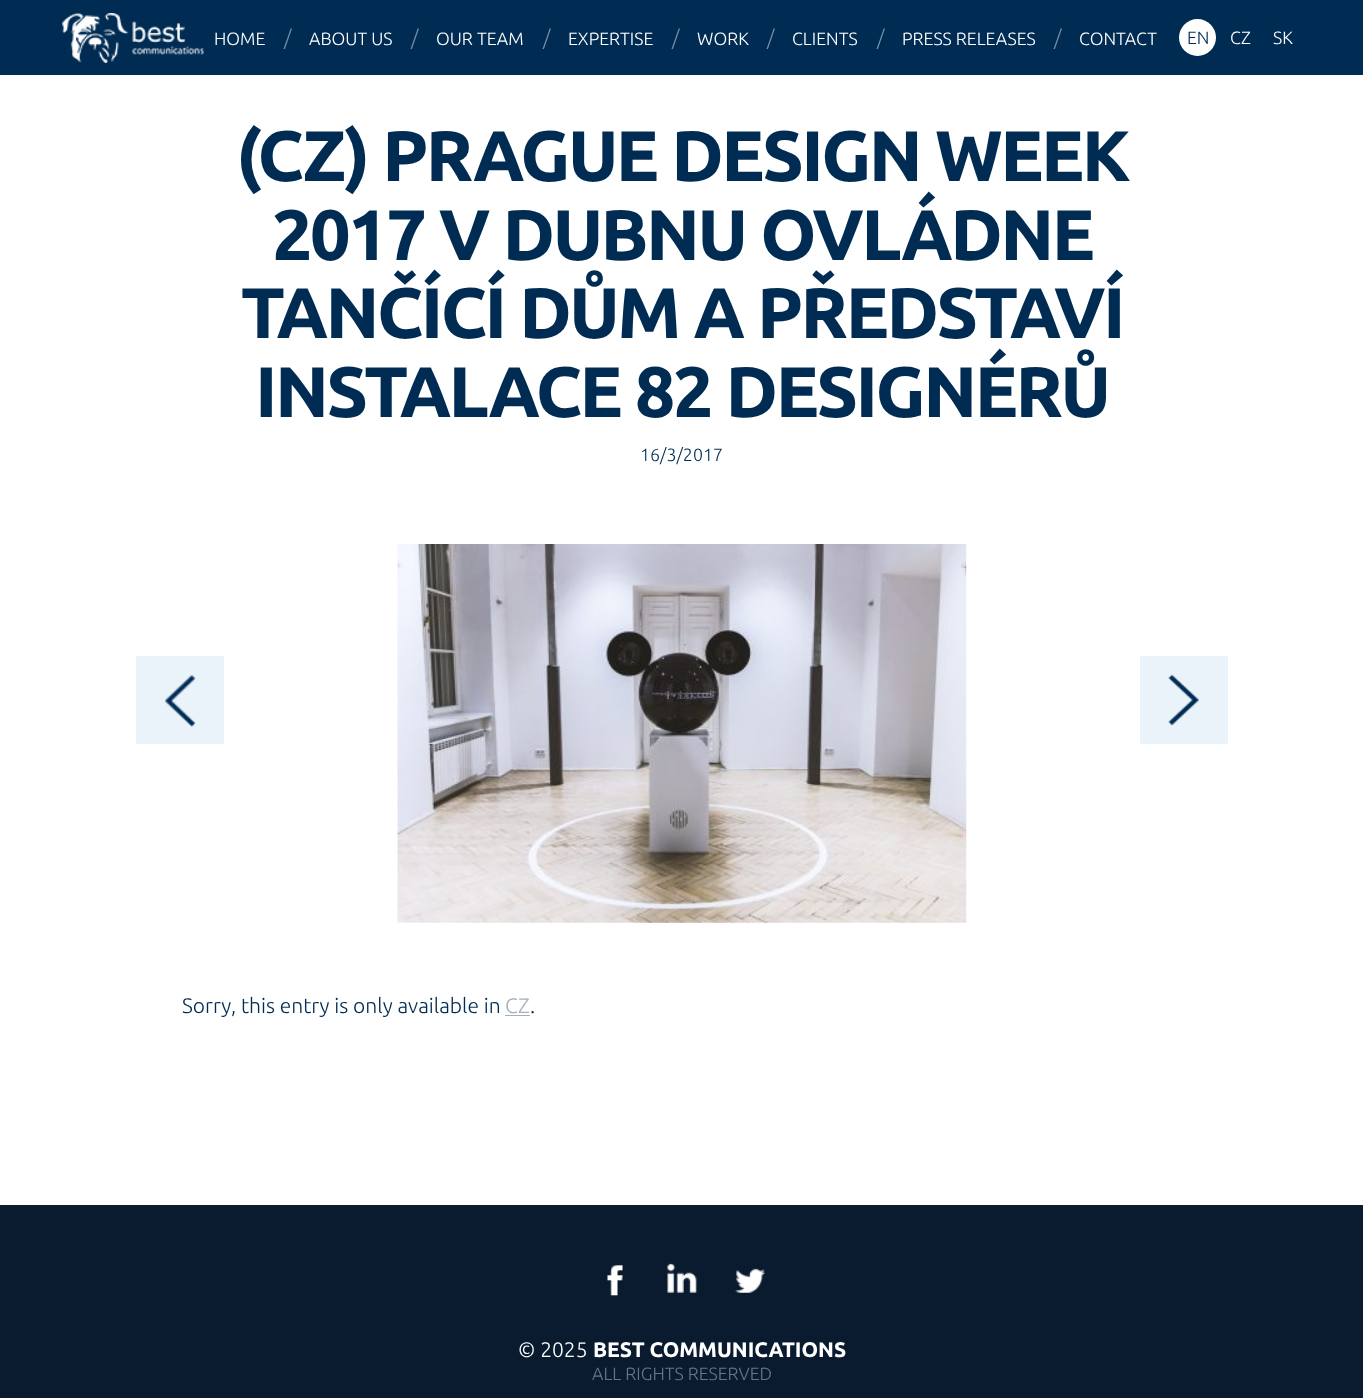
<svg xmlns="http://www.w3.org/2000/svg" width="1363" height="1398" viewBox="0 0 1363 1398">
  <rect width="100%" height="100%" fill="#ffffff"/>
  <rect x="0" y="0" width="1363" height="75" fill="#002c53"/>
  <image x="62" y="13" width="142" height="50" href="img1.png"/>
  <text x="214" y="45" font-family="Ubuntu" font-size="17.8" font-weight="300" fill="#ffffff">HOME</text>
  <text x="284" y="45" font-family="Ubuntu" font-size="21" font-weight="300" fill="#728da3">/</text>
  <text x="309" y="45" font-family="Ubuntu" font-size="17.8" font-weight="300" fill="#ffffff">ABOUT US</text>
  <text x="411" y="45" font-family="Ubuntu" font-size="21" font-weight="300" fill="#728da3">/</text>
  <text x="436" y="45" font-family="Ubuntu" font-size="17.8" font-weight="300" fill="#ffffff">OUR TEAM</text>
  <text x="543" y="45" font-family="Ubuntu" font-size="21" font-weight="300" fill="#728da3">/</text>
  <text x="568" y="45" font-family="Ubuntu" font-size="17.8" font-weight="300" fill="#ffffff">EXPERTISE</text>
  <text x="672" y="45" font-family="Ubuntu" font-size="21" font-weight="300" fill="#728da3">/</text>
  <text x="697" y="45" font-family="Ubuntu" font-size="17.8" font-weight="300" fill="#ffffff">WORK</text>
  <text x="767" y="45" font-family="Ubuntu" font-size="21" font-weight="300" fill="#728da3">/</text>
  <text x="792" y="45" font-family="Ubuntu" font-size="17.8" font-weight="300" fill="#ffffff">CLIENTS</text>
  <text x="877" y="45" font-family="Ubuntu" font-size="21" font-weight="300" fill="#728da3">/</text>
  <text x="902" y="45" font-family="Ubuntu" font-size="17.8" font-weight="300" fill="#ffffff">PRESS RELEASES</text>
  <text x="1054" y="45" font-family="Ubuntu" font-size="21" font-weight="300" fill="#728da3">/</text>
  <text x="1079" y="45" font-family="Ubuntu" font-size="17.8" font-weight="300" fill="#ffffff">CONTACT</text>
  <circle cx="1197.5" cy="37.5" r="18.5" fill="#ffffff"/>
  <text x="1187" y="44" font-family="Ubuntu" font-size="17.8" font-weight="300" fill="#002c53">EN</text>
  <text x="1230" y="44" font-family="Ubuntu" font-size="17.8" font-weight="300" fill="#ffffff">CZ</text>
  <text x="1273" y="44" font-family="Ubuntu" font-size="17.8" font-weight="300" fill="#ffffff">SK</text>
  <text x="236" y="181" font-family="Ubuntu" font-size="71.4" font-weight="bold" letter-spacing="-2.5" fill="#002c53">(CZ) PRAGUE DESIGN WEEK</text>
  <text x="272" y="260" font-family="Ubuntu" font-size="71.4" font-weight="bold" letter-spacing="-2.5" fill="#002c53">2017 V DUBNU OVLÁDNE</text>
  <text x="241" y="338" font-family="Ubuntu" font-size="71.4" font-weight="bold" letter-spacing="-2.5" fill="#002c53">TANČÍCÍ DŮM A PŘEDSTAVÍ</text>
  <text x="255" y="417" font-family="Ubuntu" font-size="71.4" font-weight="bold" letter-spacing="-2.5" fill="#002c53">INSTALACE 82 DESIGNÉRŮ</text>
  <text x="640" y="461" font-family="Ubuntu" font-size="17.8" font-weight="300" fill="#002c53">16/3/2017</text>
  <image x="397" y="544" width="570" height="379" href="img2.png"/>
  <rect x="136" y="656" width="88" height="88" fill="#eaf3fa"/>
  <image x="164" y="674" width="32" height="53" href="img3.png"/>
  <rect x="1140" y="656" width="88" height="88" fill="#eaf3fa"/>
  <image x="1168" y="674" width="31" height="52" href="img4.png"/>
  <text x="182" y="1013" font-family="Ubuntu" font-size="21" font-weight="300" fill="#002c53">Sorry, this entry is only available in</text>
  <text x="505" y="1013" font-family="Ubuntu" font-size="21" font-weight="300" fill="#a6aebb">CZ</text>
  <rect x="505" y="1015" width="25" height="1" fill="#a6aebb"/>
  <text x="530" y="1013" font-family="Ubuntu" font-size="21" font-weight="300" fill="#002c53">.</text>
  <rect x="0" y="1205" width="1363" height="193" fill="#0a1b30"/>
  <image x="607" y="1265" width="16" height="31" href="img5.png"/>
  <image x="667" y="1263" width="30" height="30" href="img6.png"/>
  <image x="735" y="1268" width="31" height="25" href="img7.png"/>
  <text x="518" y="1357" font-family="Ubuntu" font-size="21" font-weight="300" fill="#ffffff">© 2025</text>
  <text x="593" y="1357" font-family="Ubuntu" font-size="21" font-weight="bold" fill="#ffffff">BEST COMMUNICATIONS</text>
  <text x="592" y="1380" font-family="Ubuntu" font-size="17.8" font-weight="300" fill="#697583">ALL RIGHTS RESERVED</text>
</svg>
